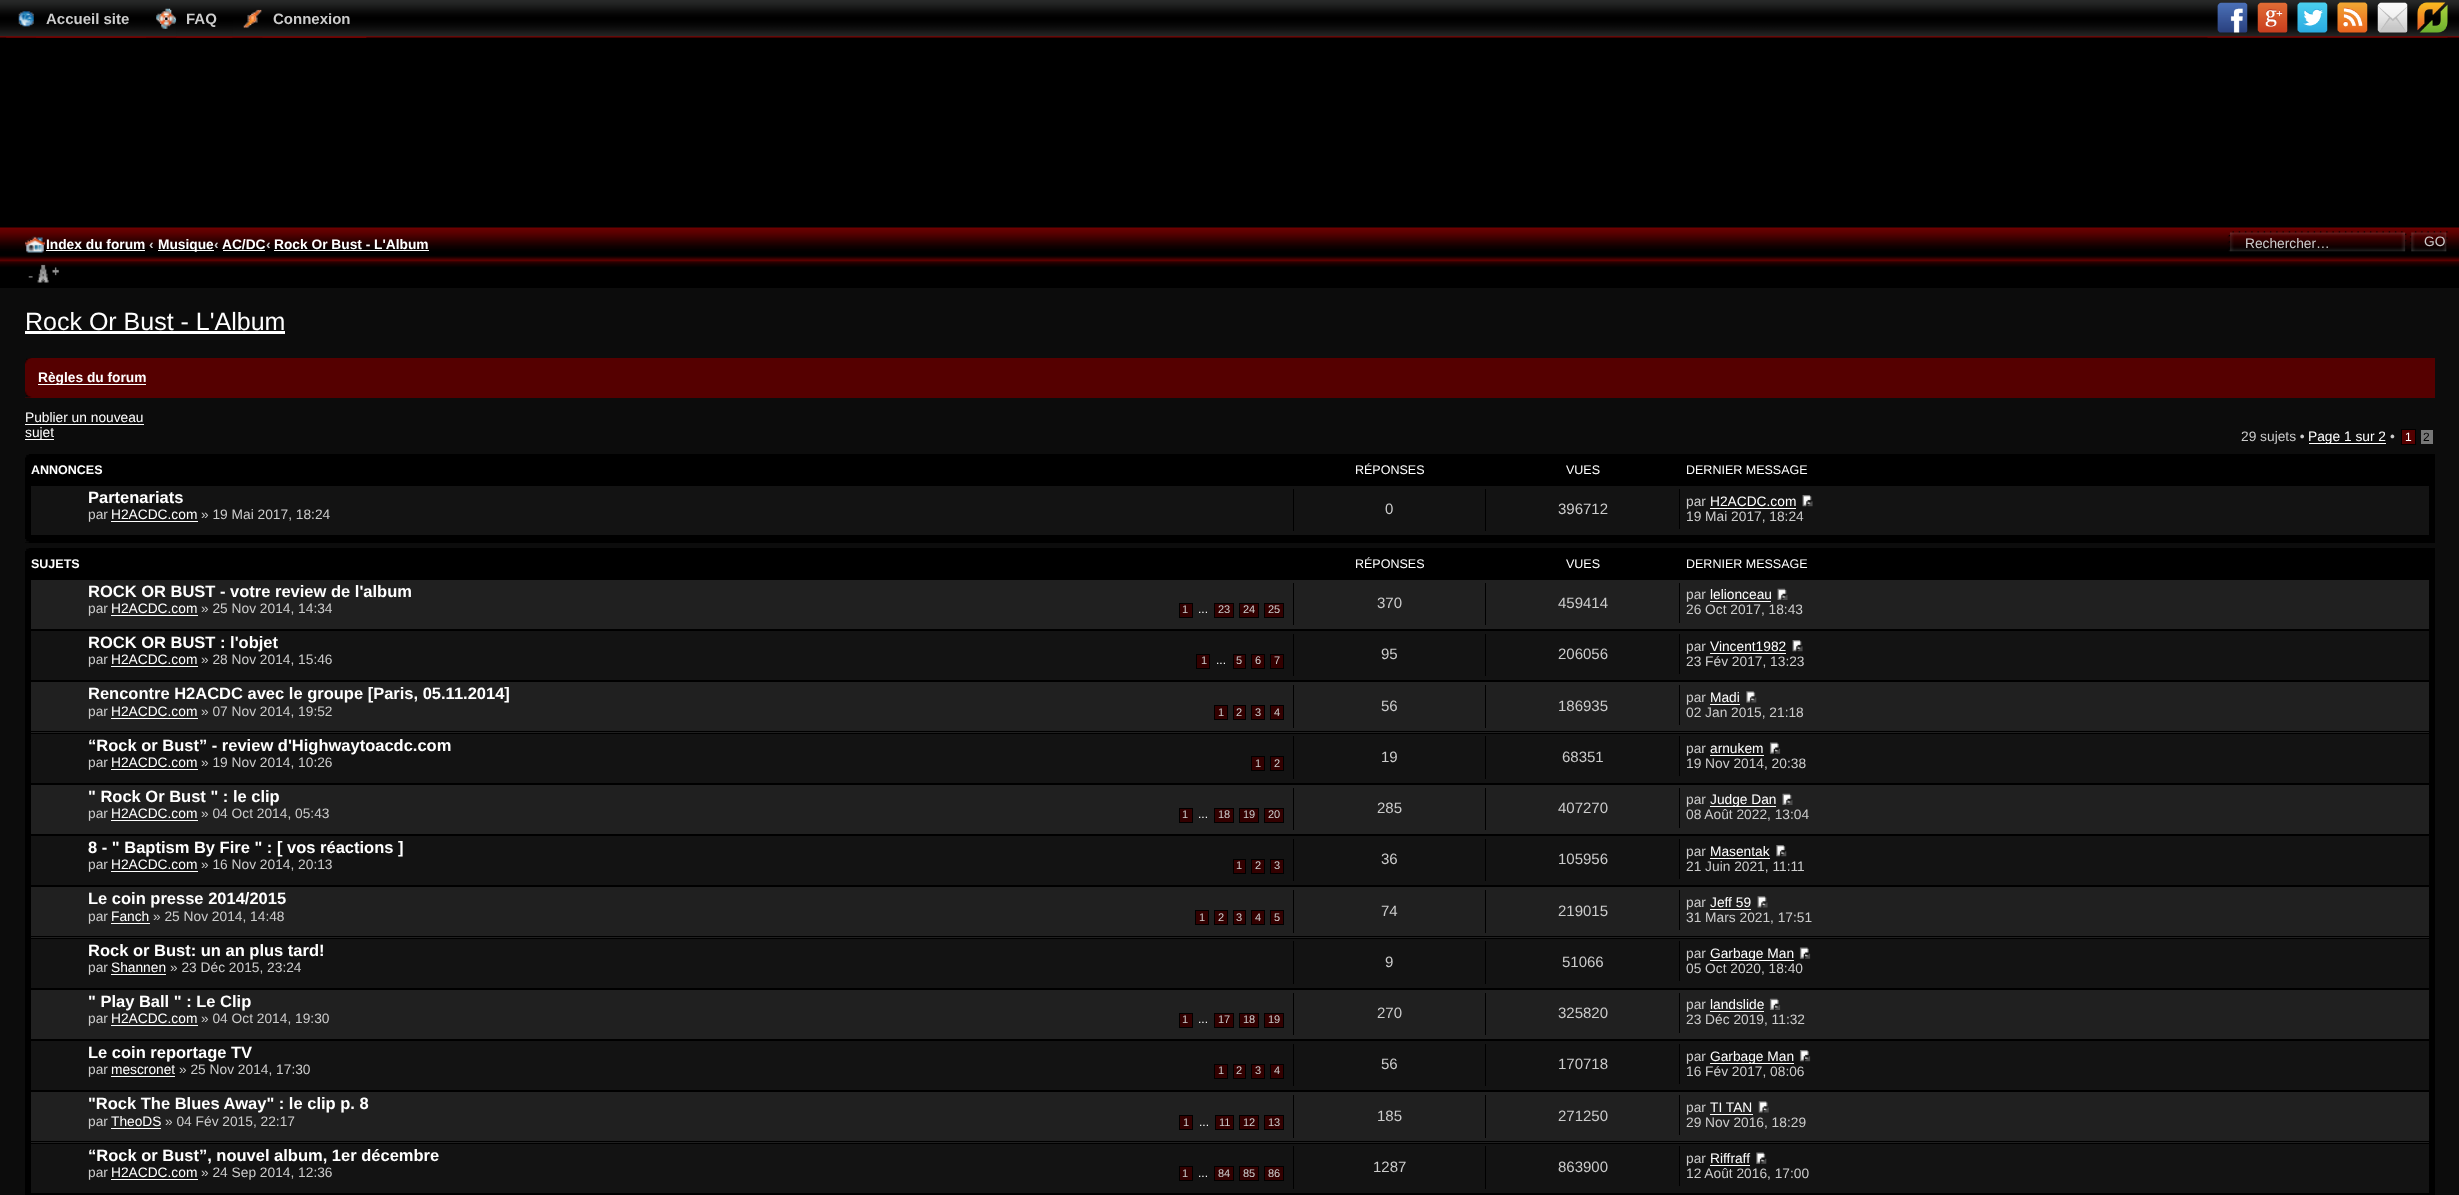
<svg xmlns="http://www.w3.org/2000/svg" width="2459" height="1195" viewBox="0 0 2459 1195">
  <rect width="100%" height="100%" fill="#0c0c0c"/>
  <rect x="0" y="37" width="2459" height="251" fill="#000000"/>
  <image x="0" y="0" width="2459" height="38" href="img1.png"/>
  <image x="6" y="37" width="141" height="1" href="img2.png"/>
  <image x="18" y="11" width="16" height="16" href="img3.png"/>
  <image x="36" y="37" width="111" height="1" href="img4.png"/>
  <text x="46" y="24" font-family="Liberation Sans" font-size="15" font-weight="bold" fill="#cccccc">Accueil site</text>
  <image x="146" y="37" width="87" height="1" href="img5.png"/>
  <image x="156" y="8" width="21" height="21" href="img6.png"/>
  <image x="176" y="17" width="57" height="21" href="img7.png"/>
  <text x="186" y="24" font-family="Liberation Sans" font-size="15" font-weight="bold" fill="#cccccc">FAQ</text>
  <image x="232" y="37" width="135" height="1" href="img8.png"/>
  <image x="243" y="9" width="19" height="19" href="img9.png"/>
  <image x="262" y="37" width="105" height="1" href="img10.png"/>
  <text x="273" y="24" font-family="Liberation Sans" font-size="15" font-weight="bold" fill="#cccccc">Connexion</text>
  <image x="2207" y="37" width="41" height="1" href="img11.png"/>
  <image x="2217" y="2" width="31" height="31" href="img12.png"/>
  <image x="2247" y="4" width="41" height="34" href="img13.png"/>
  <image x="2257" y="2" width="31" height="31" href="img14.png"/>
  <image x="2287" y="4" width="41" height="34" href="img15.png"/>
  <image x="2297" y="2" width="31" height="31" href="img16.png"/>
  <image x="2327" y="4" width="41" height="34" href="img17.png"/>
  <image x="2337" y="2" width="31" height="31" href="img18.png"/>
  <image x="2367" y="4" width="41" height="34" href="img19.png"/>
  <image x="2377" y="2" width="31" height="31" href="img20.png"/>
  <image x="2407" y="4" width="41" height="34" href="img21.png"/>
  <image x="2417" y="2" width="31" height="31" href="img22.png"/>
  <image x="0" y="227" width="2459" height="40" href="img23.png"/>
  <image x="25" y="236" width="20" height="17" href="img24.png"/>
  <text x="46" y="249" font-family="Liberation Sans" font-size="13.75" font-weight="bold" fill="#ffffff">Index du forum</text>
  <rect x="46" y="250" width="99" height="1" fill="#ffffff"/>
  <text x="149" y="249" font-family="Liberation Sans" font-size="13.75" font-weight="bold" fill="#cccccc">‹</text>
  <rect x="158" y="250" width="56" height="1" fill="#ffffff"/>
  <text x="158" y="249" font-family="Liberation Sans" font-size="13.75" font-weight="bold" fill="#ffffff">Musique</text>
  <text x="214" y="249" font-family="Liberation Sans" font-size="13.75" font-weight="bold" fill="#cccccc">‹</text>
  <text x="222" y="249" font-family="Liberation Sans" font-size="13.75" font-weight="bold" fill="#ffffff">AC/DC</text>
  <rect x="223" y="250" width="42" height="1" fill="#ffffff"/>
  <text x="266" y="249" font-family="Liberation Sans" font-size="13.75" font-weight="bold" fill="#cccccc">‹</text>
  <text x="274" y="249" font-family="Liberation Sans" font-size="13.75" font-weight="bold" fill="#ffffff">Rock Or Bust - L'Album</text>
  <rect x="274" y="250" width="155" height="1" fill="#ffffff"/>
  <image x="28" y="264" width="31" height="19" href="img25.png"/>
  <image x="2227" y="231" width="221" height="21" href="img26.png"/>
  <text x="2245" y="248" font-family="Liberation Sans" font-size="13.75" fill="#cccccc">Rechercher…</text>
  <text x="2424" y="246" font-family="Liberation Sans" font-size="13.75" fill="#cccccc">GO</text>
  <text x="25" y="330" font-family="Liberation Sans" font-size="25" fill="#ffffff">Rock Or Bust - L'Album</text>
  <rect x="25" y="331" width="260" height="3" fill="#ffffff"/>
  <rect x="25" y="358" width="2410" height="40" fill="#550000"/>
  <image x="25" y="358" width="7" height="6" href="img27.png"/>
  <rect x="38" y="384" width="108" height="1" fill="#ffffff"/>
  <text x="38" y="382" font-family="Liberation Sans" font-size="13.75" font-weight="bold" fill="#ffffff">Règles du forum</text>
  <image x="25" y="391" width="7" height="7" href="img28.png"/>
  <text x="25" y="422" font-family="Liberation Sans" font-size="13.75" fill="#ffffff">Publier un nouveau</text>
  <rect x="25" y="424" width="119" height="1" fill="#ffffff"/>
  <rect x="25" y="439" width="29" height="1" fill="#ffffff"/>
  <text x="25" y="437" font-family="Liberation Sans" font-size="13.75" fill="#ffffff">sujet</text>
  <text x="2241" y="441" font-family="Liberation Sans" font-size="13.75" fill="#cccccc">29 sujets •</text>
  <rect x="2309" y="443" width="77" height="1" fill="#ffffff"/>
  <text x="2308" y="441" font-family="Liberation Sans" font-size="13.75" fill="#ffffff">Page 1 sur 2</text>
  <text x="2390" y="441" font-family="Liberation Sans" font-size="13.75" fill="#cccccc">•</text>
  <rect x="2401.5" y="429.5" width="14" height="15" fill="#550000" stroke="#000000"/>
  <text x="2405" y="441" font-family="Liberation Sans" font-size="12" fill="#ffffff">1</text>
  <rect x="2421" y="430" width="12" height="14" fill="#777777"/>
  <text x="2423" y="441" font-family="Liberation Sans" font-size="12" fill="#000000">2</text>
  <rect x="25" y="454" width="2410" height="89" fill="#000000"/>
  <image x="25" y="454" width="4" height="4" href="img29.png"/>
  <text x="31" y="474" font-family="Liberation Sans" font-size="12.5" font-weight="bold" fill="#ffffff">ANNONCES</text>
  <text x="1355" y="474" font-family="Liberation Sans" font-size="12.5" fill="#ffffff">RÉPONSES</text>
  <text x="1566" y="474" font-family="Liberation Sans" font-size="12.5" fill="#ffffff">VUES</text>
  <text x="1686" y="474" font-family="Liberation Sans" font-size="12.5" fill="#ffffff">DERNIER MESSAGE</text>
  <rect x="31" y="486" width="2398" height="49" fill="#131313"/>
  <text x="88" y="503" font-family="Liberation Sans" font-size="16.5" font-weight="bold" fill="#ffffff">Partenariats</text>
  <text x="88" y="519" font-family="Liberation Sans" font-size="13.75" fill="#cccccc">par</text>
  <text x="111" y="519" font-family="Liberation Sans" font-size="13.75" fill="#ffffff">H2ACDC.com</text>
  <rect x="111" y="521" width="87" height="1" fill="#ffffff"/>
  <text x="201" y="519" font-family="Liberation Sans" font-size="13.75" fill="#cccccc">» 19 Mai 2017, 18:24</text>
  <rect x="1293" y="489" width="1" height="42" fill="#000000"/>
  <text x="1385" y="514" font-family="Liberation Sans" font-size="15" fill="#cccccc">0</text>
  <rect x="1485" y="489" width="1" height="42" fill="#000000"/>
  <text x="1558" y="514" font-family="Liberation Sans" font-size="15" fill="#cccccc">396712</text>
  <rect x="1679" y="489" width="1" height="40" fill="#000000"/>
  <text x="1686" y="506" font-family="Liberation Sans" font-size="13.75" fill="#cccccc">par</text>
  <text x="1710" y="506" font-family="Liberation Sans" font-size="13.75" fill="#ffffff">H2ACDC.com</text>
  <rect x="1710" y="508" width="86" height="1" fill="#ffffff"/>
  <image x="1802" y="495" width="11" height="12" href="img30.png"/>
  <text x="1686" y="521" font-family="Liberation Sans" font-size="13.75" fill="#cccccc">19 Mai 2017, 18:24</text>
  <image x="25" y="539" width="4" height="4" href="img31.png"/>
  <rect x="25" y="548" width="2410" height="647" fill="#000000"/>
  <image x="25" y="548" width="4" height="3" href="img32.png"/>
  <text x="31" y="568" font-family="Liberation Sans" font-size="12.5" font-weight="bold" fill="#ffffff">SUJETS</text>
  <text x="1355" y="568" font-family="Liberation Sans" font-size="12.5" fill="#ffffff">RÉPONSES</text>
  <text x="1566" y="568" font-family="Liberation Sans" font-size="12.5" fill="#ffffff">VUES</text>
  <text x="1686" y="568" font-family="Liberation Sans" font-size="12.5" fill="#ffffff">DERNIER MESSAGE</text>
  <rect x="31" y="580" width="2398" height="49" fill="#202020"/>
  <text x="88" y="597" font-family="Liberation Sans" font-size="16.5" font-weight="bold" fill="#ffffff">ROCK OR BUST - votre review de l'album</text>
  <text x="88" y="613" font-family="Liberation Sans" font-size="13.75" fill="#cccccc">par</text>
  <text x="111" y="613" font-family="Liberation Sans" font-size="13.75" fill="#ffffff">H2ACDC.com</text>
  <rect x="111" y="615" width="87" height="1" fill="#ffffff"/>
  <text x="201" y="613" font-family="Liberation Sans" font-size="13.75" fill="#cccccc">» 25 Nov 2014, 14:34</text>
  <rect x="1179.5" y="603.5" width="13" height="14" fill="#330000" stroke="#000000"/>
  <text x="1182" y="613" font-family="Liberation Sans" font-size="11" fill="#cccccc">1</text>
  <text x="1198" y="613" font-family="Liberation Sans" font-size="12" fill="#ffffff">...</text>
  <rect x="1214.5" y="603.5" width="19" height="14" fill="#330000" stroke="#000000"/>
  <text x="1218" y="613" font-family="Liberation Sans" font-size="11" fill="#cccccc">23</text>
  <rect x="1239.5" y="603.5" width="19" height="14" fill="#330000" stroke="#000000"/>
  <text x="1243" y="613" font-family="Liberation Sans" font-size="11" fill="#cccccc">24</text>
  <rect x="1264.5" y="603.5" width="19" height="14" fill="#330000" stroke="#000000"/>
  <text x="1268" y="613" font-family="Liberation Sans" font-size="11" fill="#cccccc">25</text>
  <rect x="1293" y="583" width="1" height="42" fill="#000000"/>
  <text x="1377" y="608" font-family="Liberation Sans" font-size="15" fill="#cccccc">370</text>
  <rect x="1485" y="583" width="1" height="42" fill="#000000"/>
  <text x="1558" y="608" font-family="Liberation Sans" font-size="15" fill="#cccccc">459414</text>
  <rect x="1679" y="583" width="1" height="40" fill="#000000"/>
  <text x="1686" y="599" font-family="Liberation Sans" font-size="13.75" fill="#cccccc">par</text>
  <text x="1710" y="599" font-family="Liberation Sans" font-size="13.75" fill="#ffffff">lelionceau</text>
  <rect x="1710" y="601" width="61" height="1" fill="#ffffff"/>
  <image x="1777" y="588" width="11" height="12" href="img33.png"/>
  <text x="1686" y="614" font-family="Liberation Sans" font-size="13.75" fill="#cccccc">26 Oct 2017, 18:43</text>
  <rect x="31" y="631" width="2398" height="49" fill="#131313"/>
  <text x="88" y="648" font-family="Liberation Sans" font-size="16.5" font-weight="bold" fill="#ffffff">ROCK OR BUST : l'objet</text>
  <text x="88" y="664" font-family="Liberation Sans" font-size="13.75" fill="#cccccc">par</text>
  <text x="111" y="664" font-family="Liberation Sans" font-size="13.75" fill="#ffffff">H2ACDC.com</text>
  <rect x="111" y="666" width="87" height="1" fill="#ffffff"/>
  <text x="201" y="664" font-family="Liberation Sans" font-size="13.75" fill="#cccccc">» 28 Nov 2014, 15:46</text>
  <rect x="1196.5" y="654.5" width="13" height="14" fill="#330000" stroke="#000000"/>
  <text x="1201" y="664" font-family="Liberation Sans" font-size="11" fill="#cccccc">1</text>
  <text x="1216" y="664" font-family="Liberation Sans" font-size="12" fill="#ffffff">...</text>
  <rect x="1233.5" y="654.5" width="12" height="14" fill="#330000" stroke="#000000"/>
  <text x="1236" y="664" font-family="Liberation Sans" font-size="11" fill="#cccccc">5</text>
  <rect x="1251.5" y="654.5" width="13" height="14" fill="#330000" stroke="#000000"/>
  <text x="1255" y="664" font-family="Liberation Sans" font-size="11" fill="#cccccc">6</text>
  <rect x="1270.5" y="654.5" width="13" height="14" fill="#330000" stroke="#000000"/>
  <text x="1274" y="664" font-family="Liberation Sans" font-size="11" fill="#cccccc">7</text>
  <rect x="1293" y="634" width="1" height="42" fill="#000000"/>
  <text x="1381" y="659" font-family="Liberation Sans" font-size="15" fill="#cccccc">95</text>
  <rect x="1485" y="634" width="1" height="42" fill="#000000"/>
  <text x="1558" y="659" font-family="Liberation Sans" font-size="15" fill="#cccccc">206056</text>
  <rect x="1679" y="634" width="1" height="40" fill="#000000"/>
  <text x="1686" y="651" font-family="Liberation Sans" font-size="13.75" fill="#cccccc">par</text>
  <text x="1710" y="651" font-family="Liberation Sans" font-size="13.75" fill="#ffffff">Vincent1982</text>
  <rect x="1710" y="653" width="76" height="1" fill="#ffffff"/>
  <image x="1792" y="640" width="11" height="12" href="img30.png"/>
  <text x="1686" y="666" font-family="Liberation Sans" font-size="13.75" fill="#cccccc">23 Fév 2017, 13:23</text>
  <rect x="31" y="682" width="2398" height="51" fill="#202020"/>
  <rect x="31" y="731" width="2398" height="1" fill="#000000"/>
  <text x="88" y="699" font-family="Liberation Sans" font-size="16.5" font-weight="bold" fill="#ffffff">Rencontre H2ACDC avec le groupe [Paris, 05.11.2014]</text>
  <text x="88" y="716" font-family="Liberation Sans" font-size="13.75" fill="#cccccc">par</text>
  <text x="111" y="716" font-family="Liberation Sans" font-size="13.75" fill="#ffffff">H2ACDC.com</text>
  <rect x="111" y="718" width="87" height="1" fill="#ffffff"/>
  <text x="201" y="716" font-family="Liberation Sans" font-size="13.75" fill="#cccccc">» 07 Nov 2014, 19:52</text>
  <rect x="1214.5" y="705.5" width="13" height="14" fill="#330000" stroke="#000000"/>
  <text x="1218" y="716" font-family="Liberation Sans" font-size="11" fill="#cccccc">1</text>
  <rect x="1233.5" y="705.5" width="12" height="14" fill="#330000" stroke="#000000"/>
  <text x="1236" y="716" font-family="Liberation Sans" font-size="11" fill="#cccccc">2</text>
  <rect x="1251.5" y="705.5" width="13" height="14" fill="#330000" stroke="#000000"/>
  <text x="1255" y="716" font-family="Liberation Sans" font-size="11" fill="#cccccc">3</text>
  <rect x="1270.5" y="705.5" width="13" height="14" fill="#330000" stroke="#000000"/>
  <text x="1274" y="716" font-family="Liberation Sans" font-size="11" fill="#cccccc">4</text>
  <rect x="1293" y="685" width="1" height="43" fill="#000000"/>
  <text x="1381" y="711" font-family="Liberation Sans" font-size="15" fill="#cccccc">56</text>
  <rect x="1485" y="685" width="1" height="43" fill="#000000"/>
  <text x="1558" y="711" font-family="Liberation Sans" font-size="15" fill="#cccccc">186935</text>
  <rect x="1679" y="685" width="1" height="40" fill="#000000"/>
  <text x="1686" y="702" font-family="Liberation Sans" font-size="13.75" fill="#cccccc">par</text>
  <text x="1710" y="702" font-family="Liberation Sans" font-size="13.75" fill="#ffffff">Madi</text>
  <rect x="1710" y="704" width="30" height="1" fill="#ffffff"/>
  <image x="1746" y="691" width="11" height="12" href="img34.png"/>
  <text x="1686" y="717" font-family="Liberation Sans" font-size="13.75" fill="#cccccc">02 Jan 2015, 21:18</text>
  <rect x="31" y="734" width="2398" height="49" fill="#131313"/>
  <text x="88" y="751" font-family="Liberation Sans" font-size="16.5" font-weight="bold" fill="#ffffff">“Rock or Bust” - review d'Highwaytoacdc.com</text>
  <text x="88" y="767" font-family="Liberation Sans" font-size="13.75" fill="#cccccc">par</text>
  <text x="111" y="767" font-family="Liberation Sans" font-size="13.75" fill="#ffffff">H2ACDC.com</text>
  <rect x="111" y="769" width="87" height="1" fill="#ffffff"/>
  <text x="201" y="767" font-family="Liberation Sans" font-size="13.75" fill="#cccccc">» 19 Nov 2014, 10:26</text>
  <rect x="1251.5" y="756.5" width="13" height="14" fill="#330000" stroke="#000000"/>
  <text x="1255" y="767" font-family="Liberation Sans" font-size="11" fill="#cccccc">1</text>
  <rect x="1270.5" y="756.5" width="13" height="14" fill="#330000" stroke="#000000"/>
  <text x="1274" y="767" font-family="Liberation Sans" font-size="11" fill="#cccccc">2</text>
  <rect x="1293" y="736" width="1" height="43" fill="#000000"/>
  <text x="1381" y="762" font-family="Liberation Sans" font-size="15" fill="#cccccc">19</text>
  <rect x="1485" y="736" width="1" height="43" fill="#000000"/>
  <text x="1562" y="762" font-family="Liberation Sans" font-size="15" fill="#cccccc">68351</text>
  <rect x="1679" y="736" width="1" height="40" fill="#000000"/>
  <text x="1686" y="753" font-family="Liberation Sans" font-size="13.75" fill="#cccccc">par</text>
  <text x="1710" y="753" font-family="Liberation Sans" font-size="13.75" fill="#ffffff">arnukem</text>
  <rect x="1710" y="755" width="54" height="1" fill="#ffffff"/>
  <image x="1769" y="742" width="12" height="12" href="img35.png"/>
  <text x="1686" y="768" font-family="Liberation Sans" font-size="13.75" fill="#cccccc">19 Nov 2014, 20:38</text>
  <rect x="31" y="785" width="2398" height="49" fill="#202020"/>
  <text x="88" y="802" font-family="Liberation Sans" font-size="16.5" font-weight="bold" fill="#ffffff">" Rock Or Bust " : le clip</text>
  <text x="88" y="818" font-family="Liberation Sans" font-size="13.75" fill="#cccccc">par</text>
  <text x="111" y="818" font-family="Liberation Sans" font-size="13.75" fill="#ffffff">H2ACDC.com</text>
  <rect x="111" y="820" width="87" height="1" fill="#ffffff"/>
  <text x="201" y="818" font-family="Liberation Sans" font-size="13.75" fill="#cccccc">» 04 Oct 2014, 05:43</text>
  <rect x="1179.5" y="808.5" width="13" height="14" fill="#330000" stroke="#000000"/>
  <text x="1182" y="818" font-family="Liberation Sans" font-size="11" fill="#cccccc">1</text>
  <text x="1198" y="818" font-family="Liberation Sans" font-size="12" fill="#ffffff">...</text>
  <rect x="1214.5" y="808.5" width="19" height="14" fill="#330000" stroke="#000000"/>
  <text x="1218" y="818" font-family="Liberation Sans" font-size="11" fill="#cccccc">18</text>
  <rect x="1239.5" y="808.5" width="19" height="14" fill="#330000" stroke="#000000"/>
  <text x="1243" y="818" font-family="Liberation Sans" font-size="11" fill="#cccccc">19</text>
  <rect x="1264.5" y="808.5" width="19" height="14" fill="#330000" stroke="#000000"/>
  <text x="1268" y="818" font-family="Liberation Sans" font-size="11" fill="#cccccc">20</text>
  <rect x="1293" y="788" width="1" height="42" fill="#000000"/>
  <text x="1377" y="813" font-family="Liberation Sans" font-size="15" fill="#cccccc">285</text>
  <rect x="1485" y="788" width="1" height="42" fill="#000000"/>
  <text x="1558" y="813" font-family="Liberation Sans" font-size="15" fill="#cccccc">407270</text>
  <rect x="1679" y="788" width="1" height="40" fill="#000000"/>
  <text x="1686" y="804" font-family="Liberation Sans" font-size="13.75" fill="#cccccc">par</text>
  <rect x="1710" y="806" width="66" height="1" fill="#ffffff"/>
  <text x="1710" y="804" font-family="Liberation Sans" font-size="13.75" fill="#ffffff">Judge Dan</text>
  <image x="1782" y="793" width="11" height="12" href="img36.png"/>
  <text x="1686" y="819" font-family="Liberation Sans" font-size="13.75" fill="#cccccc">08 Août 2022, 13:04</text>
  <rect x="31" y="836" width="2398" height="49" fill="#131313"/>
  <text x="88" y="853" font-family="Liberation Sans" font-size="16.5" font-weight="bold" fill="#ffffff">8 - " Baptism By Fire " : [ vos réactions ]</text>
  <text x="88" y="869" font-family="Liberation Sans" font-size="13.75" fill="#cccccc">par</text>
  <text x="111" y="869" font-family="Liberation Sans" font-size="13.75" fill="#ffffff">H2ACDC.com</text>
  <rect x="111" y="871" width="87" height="1" fill="#ffffff"/>
  <text x="201" y="869" font-family="Liberation Sans" font-size="13.75" fill="#cccccc">» 16 Nov 2014, 20:13</text>
  <rect x="1233.5" y="859.5" width="12" height="14" fill="#330000" stroke="#000000"/>
  <text x="1236" y="869" font-family="Liberation Sans" font-size="11" fill="#cccccc">1</text>
  <rect x="1251.5" y="859.5" width="13" height="14" fill="#330000" stroke="#000000"/>
  <text x="1255" y="869" font-family="Liberation Sans" font-size="11" fill="#cccccc">2</text>
  <rect x="1270.5" y="859.5" width="13" height="14" fill="#330000" stroke="#000000"/>
  <text x="1274" y="869" font-family="Liberation Sans" font-size="11" fill="#cccccc">3</text>
  <rect x="1293" y="839" width="1" height="42" fill="#000000"/>
  <text x="1381" y="864" font-family="Liberation Sans" font-size="15" fill="#cccccc">36</text>
  <rect x="1485" y="839" width="1" height="42" fill="#000000"/>
  <text x="1558" y="864" font-family="Liberation Sans" font-size="15" fill="#cccccc">105956</text>
  <rect x="1679" y="839" width="1" height="40" fill="#000000"/>
  <text x="1686" y="856" font-family="Liberation Sans" font-size="13.75" fill="#cccccc">par</text>
  <text x="1710" y="856" font-family="Liberation Sans" font-size="13.75" fill="#ffffff">Masentak</text>
  <rect x="1710" y="858" width="60" height="1" fill="#ffffff"/>
  <image x="1776" y="845" width="11" height="12" href="img37.png"/>
  <text x="1686" y="871" font-family="Liberation Sans" font-size="13.75" fill="#cccccc">21 Juin 2021, 11:11</text>
  <rect x="31" y="887" width="2398" height="51" fill="#202020"/>
  <rect x="31" y="936" width="2398" height="1" fill="#000000"/>
  <text x="88" y="904" font-family="Liberation Sans" font-size="16.5" font-weight="bold" fill="#ffffff">Le coin presse 2014/2015</text>
  <text x="88" y="921" font-family="Liberation Sans" font-size="13.75" fill="#cccccc">par</text>
  <text x="111" y="921" font-family="Liberation Sans" font-size="13.75" fill="#ffffff">Fanch</text>
  <rect x="111" y="923" width="39" height="1" fill="#ffffff"/>
  <text x="153" y="921" font-family="Liberation Sans" font-size="13.75" fill="#cccccc">» 25 Nov 2014, 14:48</text>
  <rect x="1195.5" y="910.5" width="13" height="14" fill="#330000" stroke="#000000"/>
  <text x="1199" y="921" font-family="Liberation Sans" font-size="11" fill="#cccccc">1</text>
  <rect x="1214.5" y="910.5" width="13" height="14" fill="#330000" stroke="#000000"/>
  <text x="1218" y="921" font-family="Liberation Sans" font-size="11" fill="#cccccc">2</text>
  <rect x="1233.5" y="910.5" width="12" height="14" fill="#330000" stroke="#000000"/>
  <text x="1236" y="921" font-family="Liberation Sans" font-size="11" fill="#cccccc">3</text>
  <rect x="1251.5" y="910.5" width="13" height="14" fill="#330000" stroke="#000000"/>
  <text x="1255" y="921" font-family="Liberation Sans" font-size="11" fill="#cccccc">4</text>
  <rect x="1270.5" y="910.5" width="13" height="14" fill="#330000" stroke="#000000"/>
  <text x="1274" y="921" font-family="Liberation Sans" font-size="11" fill="#cccccc">5</text>
  <rect x="1293" y="890" width="1" height="43" fill="#000000"/>
  <text x="1381" y="916" font-family="Liberation Sans" font-size="15" fill="#cccccc">74</text>
  <rect x="1485" y="890" width="1" height="43" fill="#000000"/>
  <text x="1558" y="916" font-family="Liberation Sans" font-size="15" fill="#cccccc">219015</text>
  <rect x="1679" y="890" width="1" height="40" fill="#000000"/>
  <text x="1686" y="907" font-family="Liberation Sans" font-size="13.75" fill="#cccccc">par</text>
  <text x="1710" y="907" font-family="Liberation Sans" font-size="13.75" fill="#ffffff">Jeff 59</text>
  <rect x="1710" y="909" width="41" height="1" fill="#ffffff"/>
  <image x="1757" y="896" width="11" height="12" href="img38.png"/>
  <text x="1686" y="922" font-family="Liberation Sans" font-size="13.75" fill="#cccccc">31 Mars 2021, 17:51</text>
  <rect x="31" y="939" width="2398" height="49" fill="#131313"/>
  <text x="88" y="956" font-family="Liberation Sans" font-size="16.5" font-weight="bold" fill="#ffffff">Rock or Bust: un an plus tard!</text>
  <text x="88" y="972" font-family="Liberation Sans" font-size="13.75" fill="#cccccc">par</text>
  <text x="111" y="972" font-family="Liberation Sans" font-size="13.75" fill="#ffffff">Shannen</text>
  <rect x="111" y="974" width="55" height="1" fill="#ffffff"/>
  <text x="170" y="972" font-family="Liberation Sans" font-size="13.75" fill="#cccccc">» 23 Déc 2015, 23:24</text>
  <rect x="1293" y="941" width="1" height="43" fill="#000000"/>
  <text x="1385" y="967" font-family="Liberation Sans" font-size="15" fill="#cccccc">9</text>
  <rect x="1485" y="941" width="1" height="43" fill="#000000"/>
  <text x="1562" y="967" font-family="Liberation Sans" font-size="15" fill="#cccccc">51066</text>
  <rect x="1679" y="941" width="1" height="40" fill="#000000"/>
  <text x="1686" y="958" font-family="Liberation Sans" font-size="13.75" fill="#cccccc">par</text>
  <rect x="1710" y="960" width="84" height="1" fill="#ffffff"/>
  <text x="1710" y="958" font-family="Liberation Sans" font-size="13.75" fill="#ffffff">Garbage Man</text>
  <image x="1799" y="947" width="12" height="12" href="img39.png"/>
  <text x="1686" y="973" font-family="Liberation Sans" font-size="13.75" fill="#cccccc">05 Oct 2020, 18:40</text>
  <rect x="31" y="990" width="2398" height="49" fill="#202020"/>
  <text x="88" y="1007" font-family="Liberation Sans" font-size="16.5" font-weight="bold" fill="#ffffff">" Play Ball " : Le Clip</text>
  <text x="88" y="1023" font-family="Liberation Sans" font-size="13.75" fill="#cccccc">par</text>
  <text x="111" y="1023" font-family="Liberation Sans" font-size="13.75" fill="#ffffff">H2ACDC.com</text>
  <rect x="111" y="1025" width="87" height="1" fill="#ffffff"/>
  <text x="201" y="1023" font-family="Liberation Sans" font-size="13.75" fill="#cccccc">» 04 Oct 2014, 19:30</text>
  <rect x="1179.5" y="1013.5" width="13" height="14" fill="#330000" stroke="#000000"/>
  <text x="1182" y="1023" font-family="Liberation Sans" font-size="11" fill="#cccccc">1</text>
  <text x="1198" y="1023" font-family="Liberation Sans" font-size="12" fill="#ffffff">...</text>
  <rect x="1214.5" y="1013.5" width="19" height="14" fill="#330000" stroke="#000000"/>
  <text x="1218" y="1023" font-family="Liberation Sans" font-size="11" fill="#cccccc">17</text>
  <rect x="1239.5" y="1013.5" width="19" height="14" fill="#330000" stroke="#000000"/>
  <text x="1243" y="1023" font-family="Liberation Sans" font-size="11" fill="#cccccc">18</text>
  <rect x="1264.5" y="1013.5" width="19" height="14" fill="#330000" stroke="#000000"/>
  <text x="1268" y="1023" font-family="Liberation Sans" font-size="11" fill="#cccccc">19</text>
  <rect x="1293" y="993" width="1" height="42" fill="#000000"/>
  <text x="1377" y="1018" font-family="Liberation Sans" font-size="15" fill="#cccccc">270</text>
  <rect x="1485" y="993" width="1" height="42" fill="#000000"/>
  <text x="1558" y="1018" font-family="Liberation Sans" font-size="15" fill="#cccccc">325820</text>
  <rect x="1679" y="993" width="1" height="40" fill="#000000"/>
  <text x="1686" y="1009" font-family="Liberation Sans" font-size="13.75" fill="#cccccc">par</text>
  <text x="1710" y="1009" font-family="Liberation Sans" font-size="13.75" fill="#ffffff">landslide</text>
  <rect x="1710" y="1011" width="54" height="1" fill="#ffffff"/>
  <image x="1769" y="998" width="12" height="12" href="img40.png"/>
  <text x="1686" y="1024" font-family="Liberation Sans" font-size="13.75" fill="#cccccc">23 Déc 2019, 11:32</text>
  <rect x="31" y="1041" width="2398" height="49" fill="#131313"/>
  <text x="88" y="1058" font-family="Liberation Sans" font-size="16.5" font-weight="bold" fill="#ffffff">Le coin reportage TV</text>
  <text x="88" y="1074" font-family="Liberation Sans" font-size="13.75" fill="#cccccc">par</text>
  <text x="111" y="1074" font-family="Liberation Sans" font-size="13.75" fill="#ffffff">mescronet</text>
  <rect x="111" y="1076" width="64" height="1" fill="#ffffff"/>
  <text x="179" y="1074" font-family="Liberation Sans" font-size="13.75" fill="#cccccc">» 25 Nov 2014, 17:30</text>
  <rect x="1214.5" y="1064.5" width="13" height="14" fill="#330000" stroke="#000000"/>
  <text x="1218" y="1074" font-family="Liberation Sans" font-size="11" fill="#cccccc">1</text>
  <rect x="1233.5" y="1064.5" width="12" height="14" fill="#330000" stroke="#000000"/>
  <text x="1236" y="1074" font-family="Liberation Sans" font-size="11" fill="#cccccc">2</text>
  <rect x="1251.5" y="1064.5" width="13" height="14" fill="#330000" stroke="#000000"/>
  <text x="1255" y="1074" font-family="Liberation Sans" font-size="11" fill="#cccccc">3</text>
  <rect x="1270.5" y="1064.5" width="13" height="14" fill="#330000" stroke="#000000"/>
  <text x="1274" y="1074" font-family="Liberation Sans" font-size="11" fill="#cccccc">4</text>
  <rect x="1293" y="1044" width="1" height="42" fill="#000000"/>
  <text x="1381" y="1069" font-family="Liberation Sans" font-size="15" fill="#cccccc">56</text>
  <rect x="1485" y="1044" width="1" height="42" fill="#000000"/>
  <text x="1558" y="1069" font-family="Liberation Sans" font-size="15" fill="#cccccc">170718</text>
  <rect x="1679" y="1044" width="1" height="40" fill="#000000"/>
  <text x="1686" y="1061" font-family="Liberation Sans" font-size="13.75" fill="#cccccc">par</text>
  <rect x="1710" y="1063" width="84" height="1" fill="#ffffff"/>
  <text x="1710" y="1061" font-family="Liberation Sans" font-size="13.75" fill="#ffffff">Garbage Man</text>
  <image x="1799" y="1050" width="12" height="12" href="img41.png"/>
  <text x="1686" y="1076" font-family="Liberation Sans" font-size="13.75" fill="#cccccc">16 Fév 2017, 08:06</text>
  <rect x="31" y="1092" width="2398" height="51" fill="#202020"/>
  <rect x="31" y="1141" width="2398" height="1" fill="#000000"/>
  <text x="88" y="1109" font-family="Liberation Sans" font-size="16.5" font-weight="bold" fill="#ffffff">"Rock The Blues Away" : le clip p. 8</text>
  <text x="88" y="1126" font-family="Liberation Sans" font-size="13.75" fill="#cccccc">par</text>
  <text x="111" y="1126" font-family="Liberation Sans" font-size="13.75" fill="#ffffff">TheoDS</text>
  <rect x="111" y="1128" width="50" height="1" fill="#ffffff"/>
  <text x="165" y="1126" font-family="Liberation Sans" font-size="13.75" fill="#cccccc">» 04 Fév 2015, 22:17</text>
  <rect x="1179.5" y="1115.5" width="13" height="14" fill="#330000" stroke="#000000"/>
  <text x="1183" y="1126" font-family="Liberation Sans" font-size="11" fill="#cccccc">1</text>
  <text x="1199" y="1126" font-family="Liberation Sans" font-size="12" fill="#ffffff">...</text>
  <rect x="1215.5" y="1115.5" width="18" height="14" fill="#330000" stroke="#000000"/>
  <text x="1219" y="1126" font-family="Liberation Sans" font-size="11" fill="#cccccc">11</text>
  <rect x="1239.5" y="1115.5" width="19" height="14" fill="#330000" stroke="#000000"/>
  <text x="1243" y="1126" font-family="Liberation Sans" font-size="11" fill="#cccccc">12</text>
  <rect x="1264.5" y="1115.5" width="19" height="14" fill="#330000" stroke="#000000"/>
  <text x="1268" y="1126" font-family="Liberation Sans" font-size="11" fill="#cccccc">13</text>
  <rect x="1293" y="1095" width="1" height="43" fill="#000000"/>
  <text x="1377" y="1121" font-family="Liberation Sans" font-size="15" fill="#cccccc">185</text>
  <rect x="1485" y="1095" width="1" height="43" fill="#000000"/>
  <text x="1558" y="1121" font-family="Liberation Sans" font-size="15" fill="#cccccc">271250</text>
  <rect x="1679" y="1095" width="1" height="40" fill="#000000"/>
  <text x="1686" y="1112" font-family="Liberation Sans" font-size="13.75" fill="#cccccc">par</text>
  <text x="1710" y="1112" font-family="Liberation Sans" font-size="13.75" fill="#ffffff">TI TAN</text>
  <rect x="1710" y="1114" width="43" height="1" fill="#ffffff"/>
  <image x="1758" y="1101" width="11" height="12" href="img42.png"/>
  <text x="1686" y="1127" font-family="Liberation Sans" font-size="13.75" fill="#cccccc">29 Nov 2016, 18:29</text>
  <rect x="31" y="1144" width="2398" height="49" fill="#131313"/>
  <text x="88" y="1161" font-family="Liberation Sans" font-size="16.5" font-weight="bold" fill="#ffffff">“Rock or Bust”, nouvel album, 1er décembre</text>
  <text x="88" y="1177" font-family="Liberation Sans" font-size="13.75" fill="#cccccc">par</text>
  <text x="111" y="1177" font-family="Liberation Sans" font-size="13.75" fill="#ffffff">H2ACDC.com</text>
  <rect x="111" y="1179" width="87" height="1" fill="#ffffff"/>
  <text x="201" y="1177" font-family="Liberation Sans" font-size="13.75" fill="#cccccc">» 24 Sep 2014, 12:36</text>
  <rect x="1179.5" y="1166.5" width="13" height="14" fill="#330000" stroke="#000000"/>
  <text x="1182" y="1177" font-family="Liberation Sans" font-size="11" fill="#cccccc">1</text>
  <text x="1198" y="1177" font-family="Liberation Sans" font-size="12" fill="#ffffff">...</text>
  <rect x="1214.5" y="1166.5" width="19" height="14" fill="#330000" stroke="#000000"/>
  <text x="1218" y="1177" font-family="Liberation Sans" font-size="11" fill="#cccccc">84</text>
  <rect x="1239.5" y="1166.5" width="19" height="14" fill="#330000" stroke="#000000"/>
  <text x="1243" y="1177" font-family="Liberation Sans" font-size="11" fill="#cccccc">85</text>
  <rect x="1264.5" y="1166.5" width="19" height="14" fill="#330000" stroke="#000000"/>
  <text x="1268" y="1177" font-family="Liberation Sans" font-size="11" fill="#cccccc">86</text>
  <rect x="1293" y="1146" width="1" height="43" fill="#000000"/>
  <text x="1373" y="1172" font-family="Liberation Sans" font-size="15" fill="#cccccc">1287</text>
  <rect x="1485" y="1146" width="1" height="43" fill="#000000"/>
  <text x="1558" y="1172" font-family="Liberation Sans" font-size="15" fill="#cccccc">863900</text>
  <rect x="1679" y="1146" width="1" height="40" fill="#000000"/>
  <text x="1686" y="1163" font-family="Liberation Sans" font-size="13.75" fill="#cccccc">par</text>
  <text x="1710" y="1163" font-family="Liberation Sans" font-size="13.75" fill="#ffffff">Riffraff</text>
  <rect x="1710" y="1165" width="40" height="1" fill="#ffffff"/>
  <image x="1756" y="1152" width="11" height="12" href="img43.png"/>
  <text x="1686" y="1178" font-family="Liberation Sans" font-size="13.75" fill="#cccccc">12 Août 2016, 17:00</text>
</svg>
